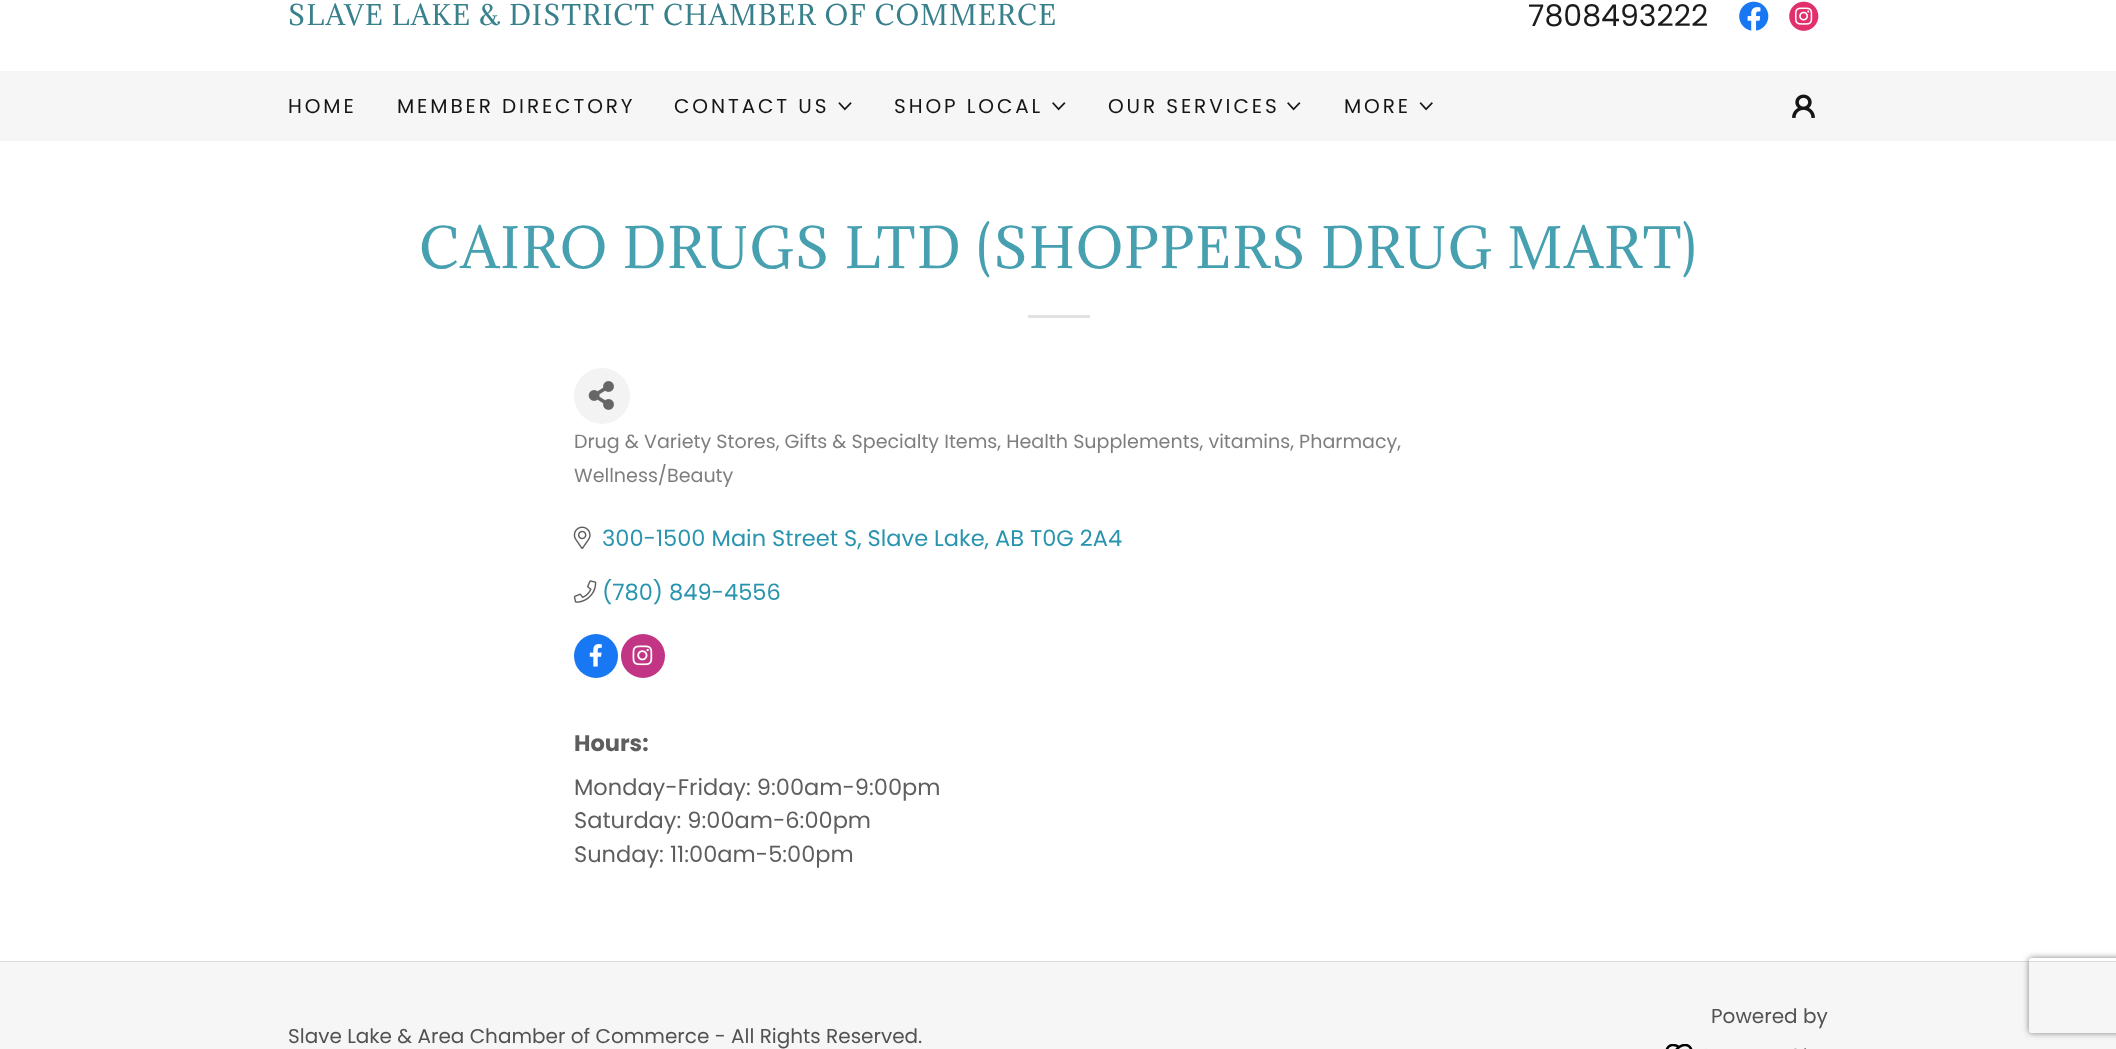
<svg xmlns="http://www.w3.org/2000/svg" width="2116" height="1049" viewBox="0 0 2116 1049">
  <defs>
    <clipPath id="clip1"><path d="M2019 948H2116V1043H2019ZM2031.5 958H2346.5C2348 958 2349 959 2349 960.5V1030.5C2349 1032 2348 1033 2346.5 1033H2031.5C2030 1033 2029 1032 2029 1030.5V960.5C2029 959 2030 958 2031.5 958Z" clip-rule="evenodd"/></clipPath>
    <filter id="blur1" x="-50%" y="-200%" width="200%" height="500%"><feGaussianBlur stdDeviation="3"/></filter>
  </defs>
  <rect width="100%" height="100%" fill="#f6f6f6"/>
  <rect x="0" y="0" width="2116" height="71" fill="#ffffff"/>
  <text x="288" y="25" font-family="Adamina" font-size="26.25" letter-spacing="1.25" fill="#38808c">SLAVE LAKE &amp; DISTRICT CHAMBER OF COMMERCE</text>
  <text x="1528" y="26" font-family="Poppins" font-size="30" fill="#1b1b1b">7808493222</text>
  <image x="1739" y="1" width="30" height="30" href="img1.png"/>
  <image x="1789" y="1" width="30" height="30" href="img2.png"/>
  <text x="288" y="113" font-family="Poppins" font-size="20" letter-spacing="2.9" fill="#151515">HOME</text>
  <text x="397" y="113" font-family="Poppins" font-size="20" letter-spacing="2.9" fill="#151515">MEMBER DIRECTORY</text>
  <text x="674" y="113" font-family="Poppins" font-size="20" letter-spacing="2.9" fill="#151515">CONTACT US</text>
  <image x="838" y="102" width="14" height="9" href="img3.png"/>
  <text x="894" y="113" font-family="Poppins" font-size="20" letter-spacing="2.9" fill="#151515">SHOP LOCAL</text>
  <image x="1052" y="102" width="14" height="9" href="img4.png"/>
  <text x="1108" y="113" font-family="Poppins" font-size="20" letter-spacing="2.9" fill="#151515">OUR SERVICES</text>
  <image x="1287" y="102" width="14" height="9" href="img4.png"/>
  <text x="1344" y="113" font-family="Poppins" font-size="20" letter-spacing="2.9" fill="#151515">MORE</text>
  <image x="1419" y="102" width="14" height="9" href="img5.png"/>
  <image x="1792" y="94" width="23" height="24" href="img6.png"/>
  <rect x="0" y="141" width="2116" height="820" fill="#ffffff"/>
  <text x="419" y="268" font-family="Adamina" font-size="52.5" letter-spacing="1.25" fill="#46a0b0">CAIRO DRUGS LTD (SHOPPERS DRUG MART)</text>
  <rect x="1028" y="315" width="62" height="3" fill="#e2e2e2"/>
  <circle cx="602" cy="396" r="28" fill="#f3f3f3"/>
  <image x="588" y="381" width="26" height="29" href="img7.png"/>
  <text x="574" y="448" font-family="Poppins" font-size="19.1" fill="#7e7e7e">Drug &amp; Variety Stores, Gifts &amp; Specialty Items, Health Supplements, vitamins, Pharmacy,</text>
  <text x="574" y="482" font-family="Poppins" font-size="19.1" fill="#7e7e7e">Wellness/Beauty</text>
  <image x="573" y="526" width="18" height="23" href="img8.png"/>
  <text x="602" y="546" font-family="Poppins" font-size="22.5" fill="#2994ae">300-1500 Main Street S, Slave Lake, AB T0G 2A4</text>
  <image x="573" y="580" width="24" height="23" href="img9.png"/>
  <text x="602" y="600" font-family="Poppins" font-size="22.5" fill="#2994ae">(780) 849-4556</text>
  <circle cx="596" cy="656" r="22" fill="#1877f2"/>
  <image x="589" y="644" width="13" height="23" href="img10.png"/>
  <circle cx="643" cy="656" r="22" fill="#c13584"/>
  <image x="632" y="645" width="21" height="21" href="img11.png"/>
  <text x="574" y="751" font-family="Poppins" font-size="22.5" font-weight="bold" fill="#5e5e5e">Hours:</text>
  <text x="574" y="795" font-family="Poppins" font-size="22.5" fill="#5e5e5e">Monday-Friday: 9:00am-9:00pm</text>
  <text x="574" y="828" font-family="Poppins" font-size="22.5" fill="#5e5e5e">Saturday: 9:00am-6:00pm</text>
  <text x="574" y="862" font-family="Poppins" font-size="22.5" fill="#5e5e5e">Sunday: 11:00am-5:00pm</text>
  <rect x="0" y="961" width="2116" height="1" fill="#dadada"/>
  <text x="1711" y="1023" font-family="Poppins" font-size="20" fill="#525252">Powered by</text>
  <image x="1665" y="1044" width="141" height="5" href="img12.png"/>
  <text x="288" y="1043" font-family="Poppins" font-size="20" fill="#525252">Slave Lake &amp; Area Chamber of Commerce - All Rights Reserved.</text>
  <g clip-path="url(#clip1)">
    <rect x="2029" y="958" width="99" height="75" rx="2.5" fill="#808080" filter="url(#blur1)"/>
  </g>
</svg>
